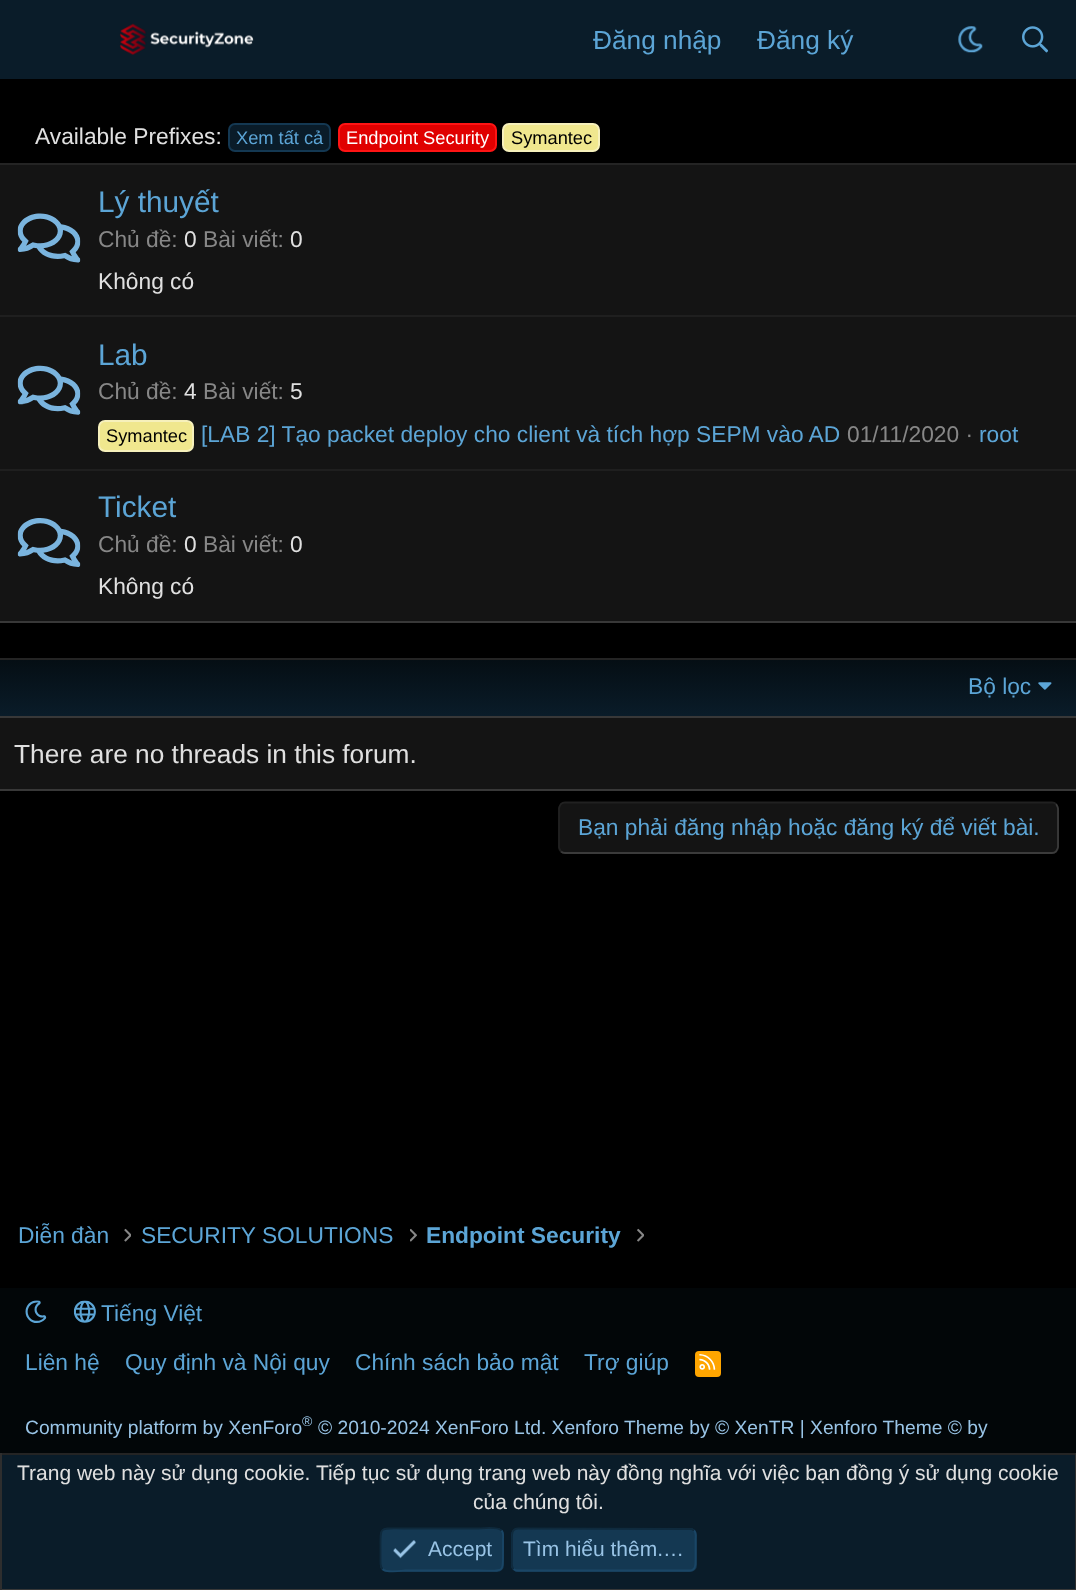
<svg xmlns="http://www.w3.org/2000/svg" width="1076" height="1590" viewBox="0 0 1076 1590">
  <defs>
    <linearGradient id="g1" gradientUnits="userSpaceOnUse" x1="538" y1="716" x2="538" y2="660"><stop offset="0" stop-color="#0a1c29"/><stop offset="1" stop-color="#050e14"/></linearGradient>
  </defs>
  <rect width="100%" height="100%" fill="#000000"/>
  <rect x="0" y="0" width="1076" height="79" fill="#0a1c29"/>
  <image x="119" y="23" width="135" height="32" href="img1.png"/>
  <text x="593" y="49" font-family="Liberation Sans" font-size="26.25" fill="#5ca5d6">Đăng nhập</text>
  <text x="757" y="49" font-family="Liberation Sans" font-size="26.25" fill="#5ca5d6">Đăng ký</text>
  <image x="958" y="26" width="25" height="27" href="img2.png"/>
  <image x="1022" y="26" width="26" height="27" href="img3.png"/>
  <text x="35" y="144" font-family="Liberation Sans" font-size="22.75" fill="#e0e0e0">Available Prefixes:</text>
  <rect x="229" y="124" width="101" height="27" rx="6" fill="#0a1c29" stroke="#143852" stroke-width="2"/>
  <text x="236" y="144" font-family="Liberation Sans" font-size="18.25" fill="#5ca5d6">Xem tất cả</text>
  <rect x="339" y="124" width="157" height="27" rx="6" fill="#e00000" stroke="#ff1414" stroke-width="2"/>
  <text x="346" y="144" font-family="Liberation Sans" font-size="18.25" fill="#ffffff">Endpoint Security</text>
  <rect x="503" y="124" width="96" height="27" rx="6" fill="#f0e78e" stroke="#f6f0bb" stroke-width="2"/>
  <text x="511" y="144" font-family="Liberation Sans" font-size="18.25" fill="#000000">Symantec</text>
  <rect x="0" y="165" width="1076" height="456" fill="#141414"/>
  <rect x="0" y="163" width="1076" height="2" fill="#242424"/>
  <rect x="0" y="621" width="1076" height="2" fill="#383838"/>
  <image x="17" y="213" width="64" height="50" href="img4.png"/>
  <text x="98" y="212" font-family="Liberation Sans" font-size="29.75" fill="#5ca5d6">Lý thuyết</text>
  <text x="98" y="247" font-family="Liberation Sans" font-size="22.75" fill="#878787">Chủ đề:</text>
  <text x="184" y="247" font-family="Liberation Sans" font-size="22.75" fill="#e0e0e0">0</text>
  <text x="203" y="247" font-family="Liberation Sans" font-size="22.75" fill="#878787">Bài viết:</text>
  <text x="290" y="247" font-family="Liberation Sans" font-size="22.75" fill="#e0e0e0">0</text>
  <text x="98" y="289" font-family="Liberation Sans" font-size="22.75" fill="#e0e0e0">Không có</text>
  <rect x="0" y="315" width="1076" height="2" fill="#1f1f1f"/>
  <image x="17" y="365" width="64" height="50" href="img5.png"/>
  <text x="98" y="365" font-family="Liberation Sans" font-size="29.75" fill="#5ca5d6">Lab</text>
  <text x="98" y="399" font-family="Liberation Sans" font-size="22.75" fill="#878787">Chủ đề:</text>
  <text x="184" y="399" font-family="Liberation Sans" font-size="22.75" fill="#e0e0e0">4</text>
  <text x="203" y="399" font-family="Liberation Sans" font-size="22.75" fill="#878787">Bài viết:</text>
  <text x="290" y="399" font-family="Liberation Sans" font-size="22.75" fill="#e0e0e0">5</text>
  <rect x="99" y="421" width="94" height="30" rx="6" fill="#f0e78e" stroke="#f6f0bb" stroke-width="2"/>
  <text x="106" y="442" font-family="Liberation Sans" font-size="18.25" fill="#000000">Symantec</text>
  <text x="201" y="442" font-family="Liberation Sans" font-size="22.75" fill="#5ca5d6">[LAB 2] Tạo packet deploy cho client và tích hợp SEPM vào AD</text>
  <text x="847" y="442" font-family="Liberation Sans" font-size="22.75" fill="#878787">01/11/2020 ·</text>
  <text x="979" y="442" font-family="Liberation Sans" font-size="22.75" fill="#5ca5d6">root</text>
  <rect x="0" y="469" width="1076" height="2" fill="#1f1f1f"/>
  <image x="17" y="518" width="64" height="49" href="img6.png"/>
  <text x="98" y="517" font-family="Liberation Sans" font-size="29.75" fill="#5ca5d6">Ticket</text>
  <text x="98" y="552" font-family="Liberation Sans" font-size="22.75" fill="#878787">Chủ đề:</text>
  <text x="184" y="552" font-family="Liberation Sans" font-size="22.75" fill="#e0e0e0">0</text>
  <text x="203" y="552" font-family="Liberation Sans" font-size="22.75" fill="#878787">Bài viết:</text>
  <text x="290" y="552" font-family="Liberation Sans" font-size="22.75" fill="#e0e0e0">0</text>
  <text x="98" y="594" font-family="Liberation Sans" font-size="22.75" fill="#e0e0e0">Không có</text>
  <rect x="0" y="718" width="1076" height="71" fill="#141414"/>
  <rect x="0" y="658" width="1076" height="2" fill="#242424"/>
  <rect x="0" y="789" width="1076" height="2" fill="#383838"/>
  <rect x="0" y="660" width="1076" height="56" fill="url(#g1)"/>
  <rect x="0" y="716" width="1076" height="2" fill="#383838"/>
  <text x="968" y="694" font-family="Liberation Sans" font-size="22.75" fill="#5ca5d6">Bộ lọc</text>
  <image x="1038" y="682" width="14" height="8" href="img7.png"/>
  <text x="14" y="763" font-family="Liberation Sans" font-size="26.25" fill="#e0e0e0">There are no threads in this forum.</text>
  <rect x="558" y="802" width="501" height="52" rx="7" fill="#141414"/>
  <path d="M1056 804C1057 805.5 1058 807 1058 808.5V847C1058 848.5 1057 850 1056 851.5C1055 852.5 1053.5 853 1052 853H565C563.5 853 562 852.5 561 851.5" fill="none" stroke="#3b3b3b" stroke-width="1.8"/>
  <path d="M561 851.5C560 850 559 848.5 559 847V808.5C559 807 560 805.5 561 804C562 803 563.5 802.5 565 802.5H1052C1053.5 802.5 1055 803 1056 804" fill="none" stroke="#212121" stroke-width="1.8"/>
  <text x="578" y="835" font-family="Liberation Sans" font-size="22.75" fill="#5ca5d6">Bạn phải đăng nhập hoặc đăng ký để viết bài.</text>
  <text x="18" y="1243" font-family="Liberation Sans" font-size="22.75" fill="#5ca5d6">Diễn đàn</text>
  <image x="124" y="1228" width="7" height="14" href="img8.png"/>
  <text x="141" y="1243" font-family="Liberation Sans" font-size="22.75" fill="#5ca5d6">SECURITY SOLUTIONS</text>
  <image x="410" y="1228" width="7" height="14" href="img9.png"/>
  <text x="426" y="1243" font-family="Liberation Sans" font-size="22.75" font-weight="bold" fill="#5ca5d6">Endpoint Security</text>
  <image x="637" y="1228" width="7" height="14" href="img10.png"/>
  <rect x="0" y="1288" width="1076" height="165" fill="#020608"/>
  <image x="25" y="1300" width="22" height="23" href="img11.png"/>
  <image x="73" y="1300" width="23" height="23" href="img12.png"/>
  <text x="101" y="1321" font-family="Liberation Sans" font-size="22.75" fill="#5ca5d6">Tiếng Việt</text>
  <text x="25" y="1370" font-family="Liberation Sans" font-size="22.75" fill="#5ca5d6">Liên hệ</text>
  <text x="125" y="1370" font-family="Liberation Sans" font-size="22.75" fill="#5ca5d6">Quy định và Nội quy</text>
  <text x="355" y="1370" font-family="Liberation Sans" font-size="22.75" fill="#5ca5d6">Chính sách bảo mật</text>
  <text x="584" y="1370" font-family="Liberation Sans" font-size="22.75" fill="#5ca5d6">Trợ giúp</text>
  <rect x="695" y="1351" width="26" height="26" rx="4" fill="#ffa500"/>
  <image x="699" y="1354" width="17" height="16" href="img13.png"/>
  <text x="25" y="1434" font-family="Liberation Sans" font-size="19.25" fill="#99c4e6">Community platform by XenForo</text>
  <text x="302" y="1426" font-family="Liberation Sans" font-size="14" fill="#99c4e6">®</text>
  <text x="318" y="1434" font-family="Liberation Sans" font-size="19.25" fill="#99c4e6">© 2010-2024 XenForo Ltd. Xenforo Theme by © XenTR | Xenforo Theme © by</text>
  <rect x="2" y="1455" width="1073" height="134" fill="#0a1c29"/>
  <rect x="0" y="1453" width="1076" height="2" fill="#242424"/>
  <rect x="1075" y="1453" width="1" height="137" fill="#2e2e2e"/>
  <rect x="0" y="1589" width="1076" height="1" fill="#383838"/>
  <rect x="0" y="1453" width="2" height="137" fill="#2e2e2e"/>
  <text x="17" y="1480" font-family="Liberation Sans" font-size="21" fill="#e0e0e0">Trang web này sử dụng cookie. Tiếp tục sử dụng trang web này đồng nghĩa với việc bạn đồng ý sử dụng cookie</text>
  <text x="473" y="1509" font-family="Liberation Sans" font-size="21" fill="#e0e0e0">của chúng tôi.</text>
  <rect x="380" y="1528" width="124" height="44" rx="7" fill="#143852"/>
  <path d="M501.5 1530.5C504 1533 503 1536.5 503 1539.5V1549.5C503 1574.5 505 1570.5 478.5 1570.5H405C403.5 1570.5 387 1573.5 382.5 1569" fill="none" stroke="#1a4666" stroke-width="1.8"/>
  <path d="M382.5 1569C380 1566.5 380.5 1562.5 380.5 1559.5V1549.5C380.5 1525 378.5 1528.5 405 1528.5H478.5C480.5 1528.5 497 1526 501.5 1530.5" fill="none" stroke="#0f2a3d" stroke-width="1.8"/>
  <image x="393" y="1540" width="23" height="19" href="img14.png"/>
  <text x="428" y="1556" font-family="Liberation Sans" font-size="21" fill="#99c4e6">Accept</text>
  <rect x="511" y="1528" width="186" height="44" rx="7" fill="#143852"/>
  <path d="M694 1530.5C696.5 1533 695.5 1536.5 695.5 1539.5V1559.5C695.5 1564 696 1570.5 689.5 1570.5H516L513.5 1569" fill="none" stroke="#1a4666" stroke-width="1.8"/>
  <path d="M513.5 1569C511 1566.5 512 1562.5 512 1559.5V1539.5C512 1535 511.5 1528.5 518 1528.5L691.5 1529L694 1530.5" fill="none" stroke="#0f2a3d" stroke-width="1.8"/>
  <text x="523" y="1556" font-family="Liberation Sans" font-size="21" fill="#99c4e6">Tìm hiểu thêm.…</text>
</svg>
